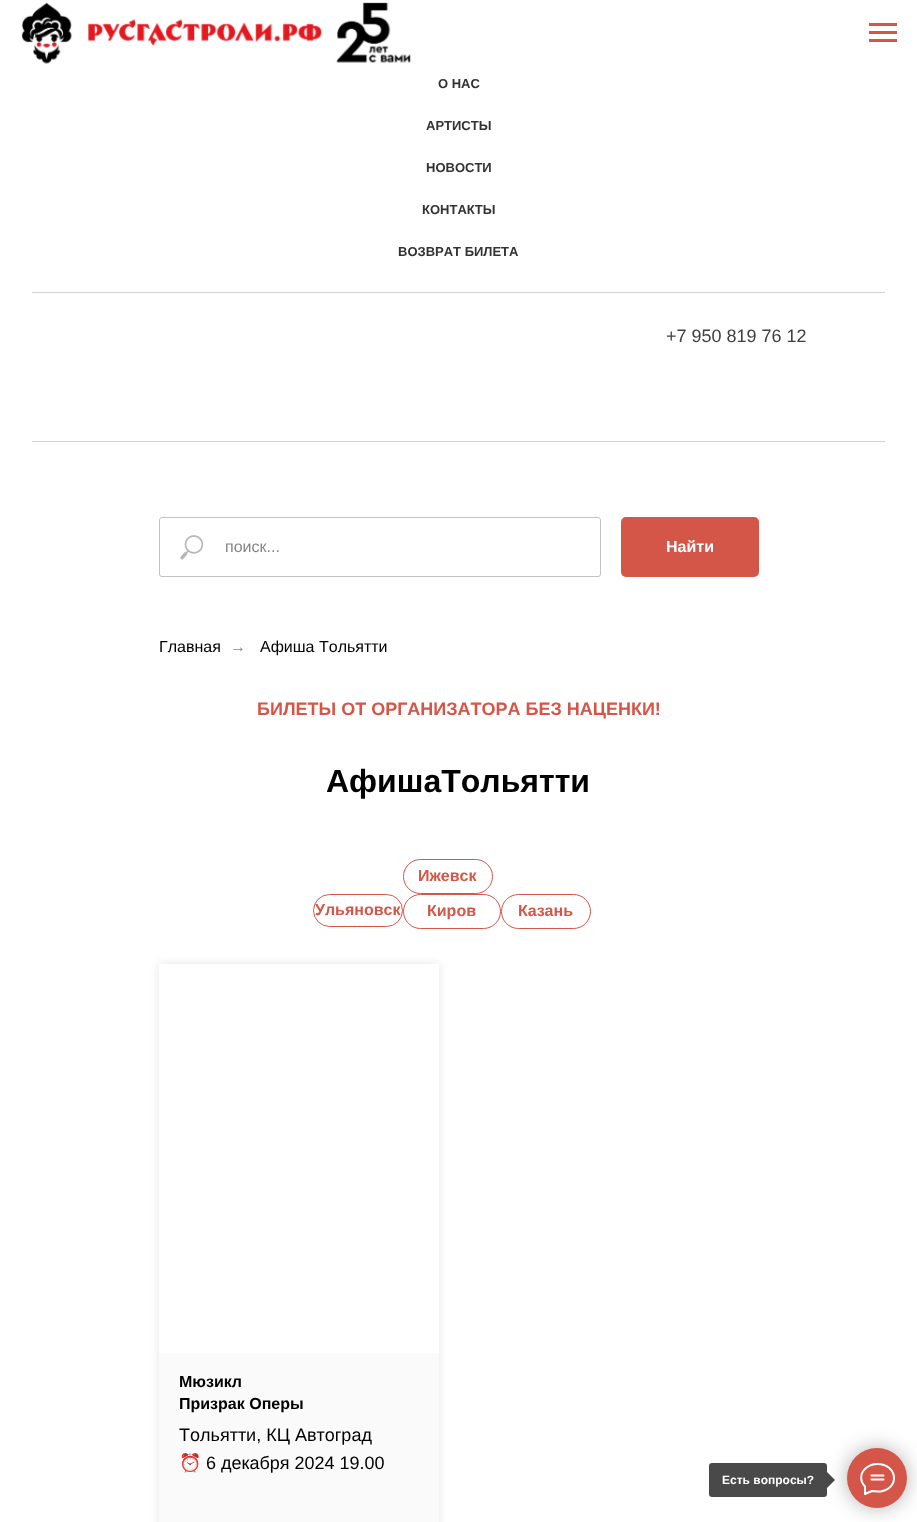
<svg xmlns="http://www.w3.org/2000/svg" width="917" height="1522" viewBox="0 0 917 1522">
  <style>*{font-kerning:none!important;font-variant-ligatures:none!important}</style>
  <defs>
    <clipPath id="clip1"><path d="M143 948H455V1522H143ZM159 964H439V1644H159Z" clip-rule="evenodd"/></clipPath>
    <filter id="blur1" x="-50%" y="-200%" width="200%" height="500%"><feGaussianBlur stdDeviation="5"/></filter>
    <filter id="blur2" x="-50%" y="-200%" width="200%" height="500%"><feGaussianBlur stdDeviation="10"/></filter>
  </defs>
  <rect width="100%" height="100%" fill="#ffffff"/>
  <image x="21" y="2" width="390" height="62" href="img1.png"/>
  <rect x="869" y="23" width="28" height="3" fill="#d45649"/>
  <rect x="869" y="31" width="28" height="3" fill="#d45649"/>
  <rect x="869" y="39" width="28" height="3" fill="#d45649"/>
  <text x="438" y="88" font-family="Liberation Sans" font-size="13" font-weight="bold" fill="#333333">О НАС</text>
  <text x="426" y="130" font-family="Liberation Sans" font-size="13" font-weight="bold" fill="#333333">АРТИСТЫ</text>
  <text x="426" y="172" font-family="Liberation Sans" font-size="13" font-weight="bold" fill="#333333">НОВОСТИ</text>
  <text x="422" y="214" font-family="Liberation Sans" font-size="13" font-weight="bold" fill="#333333">КОНТАКТЫ</text>
  <text x="398" y="256" font-family="Liberation Sans" font-size="13" font-weight="bold" fill="#333333">ВОЗВРАТ БИЛЕТА</text>
  <rect x="32" y="292" width="853" height="1" fill="#d3d3d3"/>
  <text x="666" y="342" font-family="Liberation Sans" font-size="18" fill="#404040">+7 950 819 76 12</text>
  <rect x="32" y="441" width="853" height="1" fill="#d3d3d3"/>
  <rect x="159.5" y="517.5" width="441" height="59" rx="2.5" fill="none" stroke="#c2c2c2"/>
  <image x="180" y="535" width="24" height="25" href="img2.png"/>
  <text x="225" y="552" font-family="Liberation Sans" font-size="16" fill="#858585">поиск...</text>
  <rect x="621" y="517" width="138" height="60" rx="5" fill="#d45649"/>
  <text x="666" y="552" font-family="Liberation Sans" font-size="16" font-weight="bold" fill="#ffffff">Найти</text>
  <text x="159" y="652" font-family="Liberation Sans" font-size="16" fill="#000000">Главная</text>
  <text x="230" y="652" font-family="Liberation Sans" font-size="16" fill="#858585">→</text>
  <text x="260" y="652" font-family="Liberation Sans" font-size="16" fill="#000000">Афиша Тольятти</text>
  <text x="257" y="715" font-family="Liberation Sans" font-size="18" font-weight="bold" fill="#d45649">БИЛЕТЫ ОТ ОРГАНИЗАТОРА БЕЗ НАЦЕНКИ!</text>
  <text x="326" y="792" font-family="Liberation Sans" font-size="32" font-weight="bold" fill="#000000">АфишаТольятти</text>
  <rect x="403.5" y="859.5" width="89" height="34" rx="17" fill="none" stroke="#d45649"/>
  <text x="418" y="881" font-family="Liberation Sans" font-size="16" font-weight="bold" fill="#d45649">Ижевск</text>
  <rect x="313.5" y="894.5" width="89" height="32" rx="16" fill="none" stroke="#d45649"/>
  <text x="315" y="915" font-family="Liberation Sans" font-size="16" font-weight="bold" fill="#d45649">Ульяновск</text>
  <rect x="403.5" y="894.5" width="97" height="34" rx="17" fill="none" stroke="#d45649"/>
  <text x="427" y="916" font-family="Liberation Sans" font-size="16" font-weight="bold" fill="#d45649">Киров</text>
  <rect x="501.5" y="894.5" width="89" height="34" rx="17" fill="none" stroke="#d45649"/>
  <text x="518" y="916" font-family="Liberation Sans" font-size="16" font-weight="bold" fill="#d45649">Казань</text>
  <g clip-path="url(#clip1)">
    <rect x="159" y="964" width="280" height="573" fill="#000000" fill-opacity="0.1" filter="url(#blur1)"/>
  </g>
  <rect x="159" y="1353" width="280" height="169" fill="#fafafa"/>
  <text x="179" y="1387" font-family="Liberation Sans" font-size="16" font-weight="bold" fill="#000000">Мюзикл</text>
  <text x="179" y="1409" font-family="Liberation Sans" font-size="16" font-weight="bold" fill="#000000">Призрак Оперы</text>
  <text x="179" y="1441" font-family="Liberation Sans" font-size="18" fill="#000000">Тольятти, КЦ Автоград</text>
  <text x="179" y="1469" font-family="Noto Color Emoji" font-size="18" fill="#000000">⏰</text>
  <text x="206" y="1469" font-family="Liberation Sans" font-size="18" fill="#000000">6 декабря 2024 19.00</text>
  <rect x="709" y="1463" width="118" height="34" rx="3" fill="#494949"/>
  <text x="722" y="1484" font-family="Liberation Sans" font-size="12" font-weight="bold" fill="#ffffff">Есть вопросы?</text>
  <path d="M827 1488V1472L835 1480Z" fill="#494949"/>
  <rect x="847" y="1448" width="60" height="60" rx="30" fill="#000000" fill-opacity="0.3" filter="url(#blur2)"/>
  <circle cx="877" cy="1478" r="30" fill="#d45649"/>
  <path d="M871.5 1475.5H883.5M871.5 1479.5H883.5M865 1486.5C859.5 1481 860 1473 866 1468C869 1465.5 873.5 1464 877.5 1464C897 1464 900.5 1488 881 1491.5C877 1492 875.5 1491 872 1491L865 1494V1487Z" fill="none" stroke="#ffffff" stroke-width="2" stroke-linecap="round" stroke-linejoin="round"/>
</svg>
